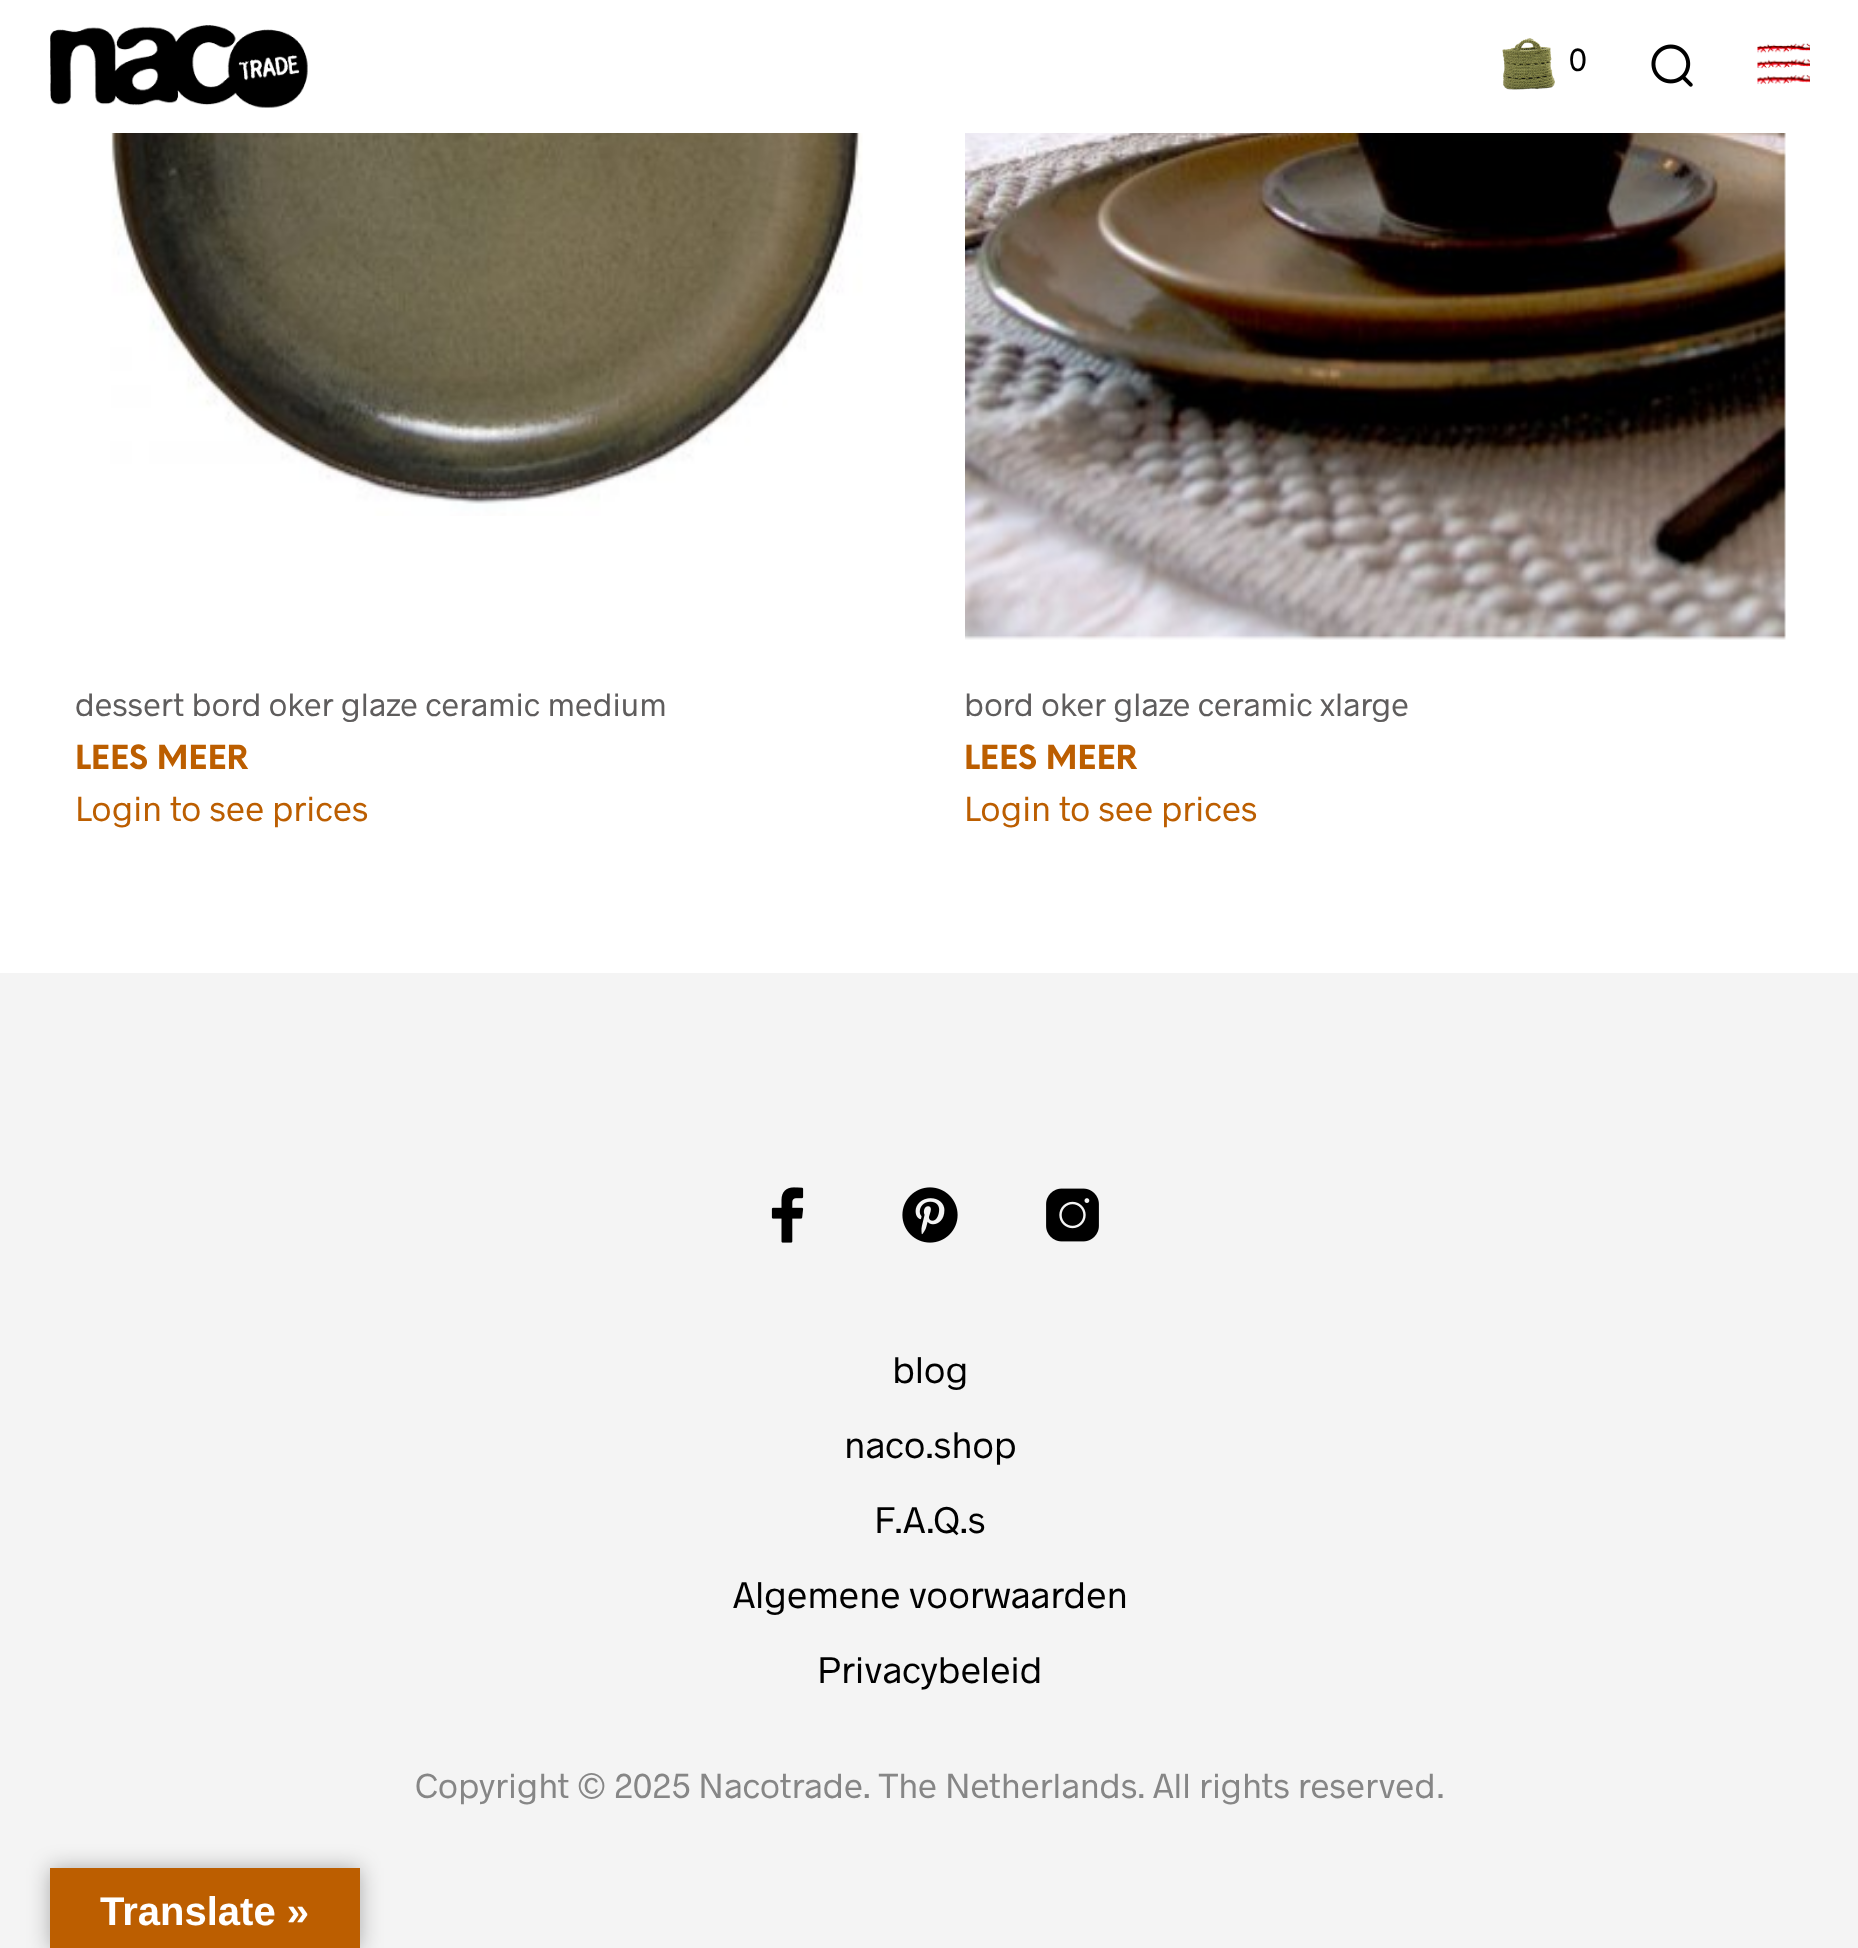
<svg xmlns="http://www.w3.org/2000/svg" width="1858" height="1948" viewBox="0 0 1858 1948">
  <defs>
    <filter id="blur1" x="-50%" y="-200%" width="200%" height="500%"><feGaussianBlur stdDeviation="11"/></filter>
  </defs>
  <rect width="100%" height="100%" fill="#ffffff"/>
  <image x="50" y="25" width="258" height="83" href="img1.png"/>
  <image x="1502" y="38" width="53" height="52" href="img2.png"/>
  <text x="1569" y="71" font-family="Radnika" font-size="32.5" fill="#000000">0</text>
  <image x="1651" y="44" width="42" height="43" href="img3.png"/>
  <image x="1757" y="43" width="53" height="42" href="img4.png"/>
  <image x="110" y="133" width="753" height="383" href="img5.png"/>
  <text x="75" y="716" font-family="Radnika" font-size="32.5" fill="#5f5d5d">dessert bord oker glaze ceramic medium</text>
  <text x="75" y="769" font-family="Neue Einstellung" font-size="32.5" font-weight="bold" fill="#bc5e00">LEES MEER</text>
  <text x="75" y="821" font-family="Radnika" font-size="35" fill="#bc5e00">Login to see prices</text>
  <image x="965" y="133" width="821" height="507" href="img6.png"/>
  <text x="964" y="716" font-family="Radnika" font-size="32.5" fill="#5f5d5d">bord oker glaze ceramic xlarge</text>
  <text x="964" y="769" font-family="Neue Einstellung" font-size="32.5" font-weight="bold" fill="#bc5e00">LEES MEER</text>
  <text x="964" y="821" font-family="Radnika" font-size="35" fill="#bc5e00">Login to see prices</text>
  <rect x="0" y="973" width="1858" height="975" fill="#f4f4f4"/>
  <image x="771" y="1187" width="33" height="56" href="img7.png"/>
  <image x="902" y="1187" width="56" height="56" href="img8.png"/>
  <image x="1046" y="1188" width="53" height="54" href="img9.png"/>
  <text x="892" y="1383" font-family="Radnika" font-size="37.5" fill="#000000">blog</text>
  <text x="844" y="1458" font-family="Radnika" font-size="37.5" fill="#000000">naco.shop</text>
  <text x="874" y="1533" font-family="Radnika" font-size="37.5" fill="#000000">F.A.Q.s</text>
  <text x="733" y="1608" font-family="Radnika" font-size="37.5" fill="#000000">Algemene voorwaarden</text>
  <text x="817" y="1683" font-family="Radnika" font-size="37.5" fill="#000000">Privacybeleid</text>
  <text x="415" y="1798" font-family="Radnika" font-size="35" fill="#868686">Copyright © 2025 Nacotrade. The Netherlands. All rights reserved.</text>
  <rect x="50" y="1868" width="310" height="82" fill="#000000" fill-opacity="0.3" filter="url(#blur1)"/>
  <rect x="50" y="1868" width="310" height="80" fill="#bc5e00"/>
  <text x="100" y="1925" font-family="Liberation Sans" font-size="40" font-weight="bold" fill="#ffffff">Translate »</text>
</svg>
